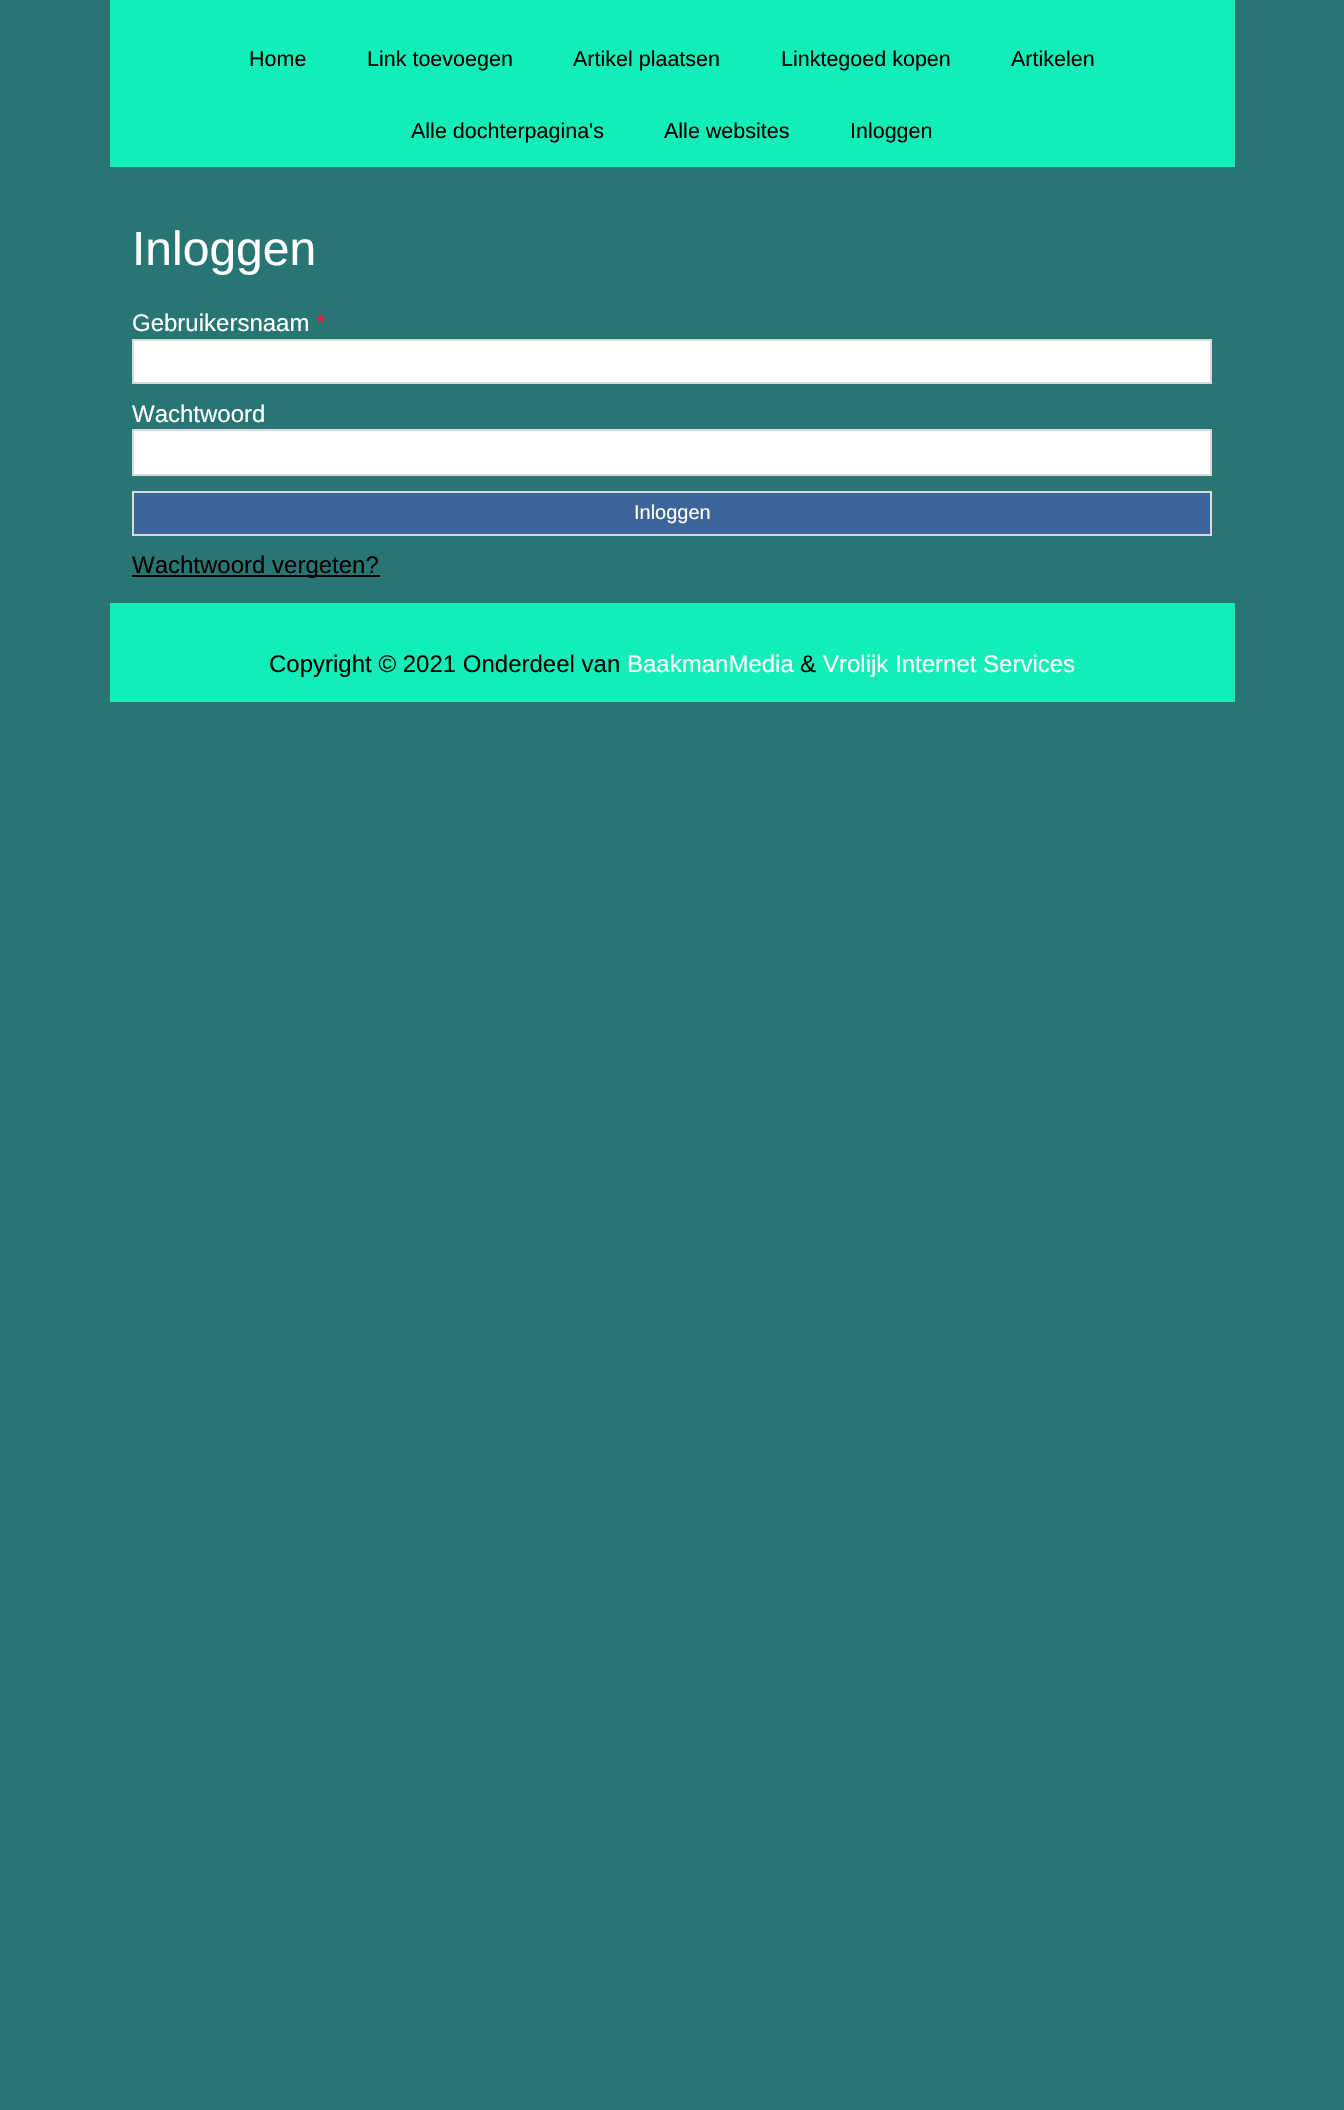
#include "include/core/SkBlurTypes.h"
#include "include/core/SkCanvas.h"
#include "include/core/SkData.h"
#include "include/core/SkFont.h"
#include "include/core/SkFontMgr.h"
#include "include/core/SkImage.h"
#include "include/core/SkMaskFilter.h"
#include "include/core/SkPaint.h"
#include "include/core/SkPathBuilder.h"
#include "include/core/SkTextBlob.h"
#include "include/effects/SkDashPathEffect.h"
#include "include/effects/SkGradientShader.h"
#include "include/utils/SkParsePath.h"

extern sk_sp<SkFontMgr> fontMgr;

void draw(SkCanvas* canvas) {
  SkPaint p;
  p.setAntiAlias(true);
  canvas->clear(SkColorSetRGB(40, 118, 116));
  p.setColor(SkColorSetRGB(17, 238, 183));
  canvas->drawRect(SkRect::MakeLTRB(110, 0, 1235, 167), p);
  p.setColor(SK_ColorWHITE);
  canvas->drawRect(SkRect::MakeLTRB(133, 340, 1211, 383), p);
  p.setStyle(SkPaint::kStroke_Style);
  p.setStrokeWidth(2);
  p.setColor(SkColorSetRGB(218, 218, 218));
  canvas->drawRect(SkRect::MakeLTRB(133, 340, 1211, 383), p);
  p.setStyle(SkPaint::kFill_Style);
  p.setColor(SK_ColorWHITE);
  canvas->drawRect(SkRect::MakeLTRB(133, 430, 1211, 475), p);
  p.setStyle(SkPaint::kStroke_Style);
  p.setColor(SkColorSetRGB(218, 218, 218));
  canvas->drawRect(SkRect::MakeLTRB(133, 430, 1211, 475), p);
  p.setStyle(SkPaint::kFill_Style);
  p.setColor(SkColorSetRGB(59, 101, 155));
  canvas->drawRect(SkRect::MakeLTRB(133, 492, 1211, 535), p);
  p.setStyle(SkPaint::kStroke_Style);
  p.setColor(SkColorSetRGB(218, 218, 218));
  canvas->drawRect(SkRect::MakeLTRB(133, 492, 1211, 535), p);
  p.setStyle(SkPaint::kFill_Style);
  p.setColor(SK_ColorBLACK);
  canvas->drawRect(SkRect::MakeLTRB(132, 575, 380, 577), p);
  p.setColor(SkColorSetRGB(17, 238, 183));
  canvas->drawRect(SkRect::MakeLTRB(110, 603, 1235, 702), p);
  SkFont font1(fontMgr->matchFamilyStyle("Liberation Sans", SkFontStyle::Normal()), 21.5f);
  font1.setSubpixel(true);
  p.setColor(SK_ColorBLACK);
  canvas->drawString("Home", 249, 66, font1, p);
  canvas->drawString("Link toevoegen", 367, 66, font1, p);
  canvas->drawString("Artikel plaatsen", 573, 66, font1, p);
  canvas->drawString("Linktegoed kopen", 781, 66, font1, p);
  canvas->drawString("Artikelen", 1011, 66, font1, p);
  canvas->drawString("Alle dochterpagina's", 411, 138, font1, p);
  canvas->drawString("Alle websites", 664, 138, font1, p);
  canvas->drawString("Inloggen", 850, 138, font1, p);
  SkFont font2(fontMgr->matchFamilyStyle("Liberation Sans", SkFontStyle::Normal()), 48);
  font2.setSubpixel(true);
  p.setColor(SK_ColorWHITE);
  canvas->drawString("Inloggen", 132, 265, font2, p);
  SkFont font3(fontMgr->matchFamilyStyle("Liberation Sans", SkFontStyle::Normal()), 24);
  font3.setSubpixel(true);
  canvas->drawString("Gebruikersnaam", 132, 331, font3, p);
  p.setColor(SkColorSetRGB(247, 23, 53));
  canvas->drawString("*", 316, 331, font3, p);
  p.setColor(SK_ColorWHITE);
  canvas->drawString("Wachtwoord", 132, 422, font3, p);
  SkFont font4(fontMgr->matchFamilyStyle("Liberation Sans", SkFontStyle::Normal()), 20);
  font4.setSubpixel(true);
  canvas->drawString("Inloggen", 634, 519, font4, p);
  p.setColor(SK_ColorBLACK);
  canvas->drawString("Wachtwoord vergeten?", 132, 573, font3, p);
  canvas->drawString("Copyright © 2021 Onderdeel van", 269, 672, font3, p);
  p.setColor(SK_ColorWHITE);
  canvas->drawString("BaakmanMedia", 627, 672, font3, p);
  p.setColor(SK_ColorBLACK);
  canvas->drawString("&", 800, 672, font3, p);
  p.setColor(SK_ColorWHITE);
  canvas->drawString("Vrolijk Internet Services", 823, 672, font3, p);
}
